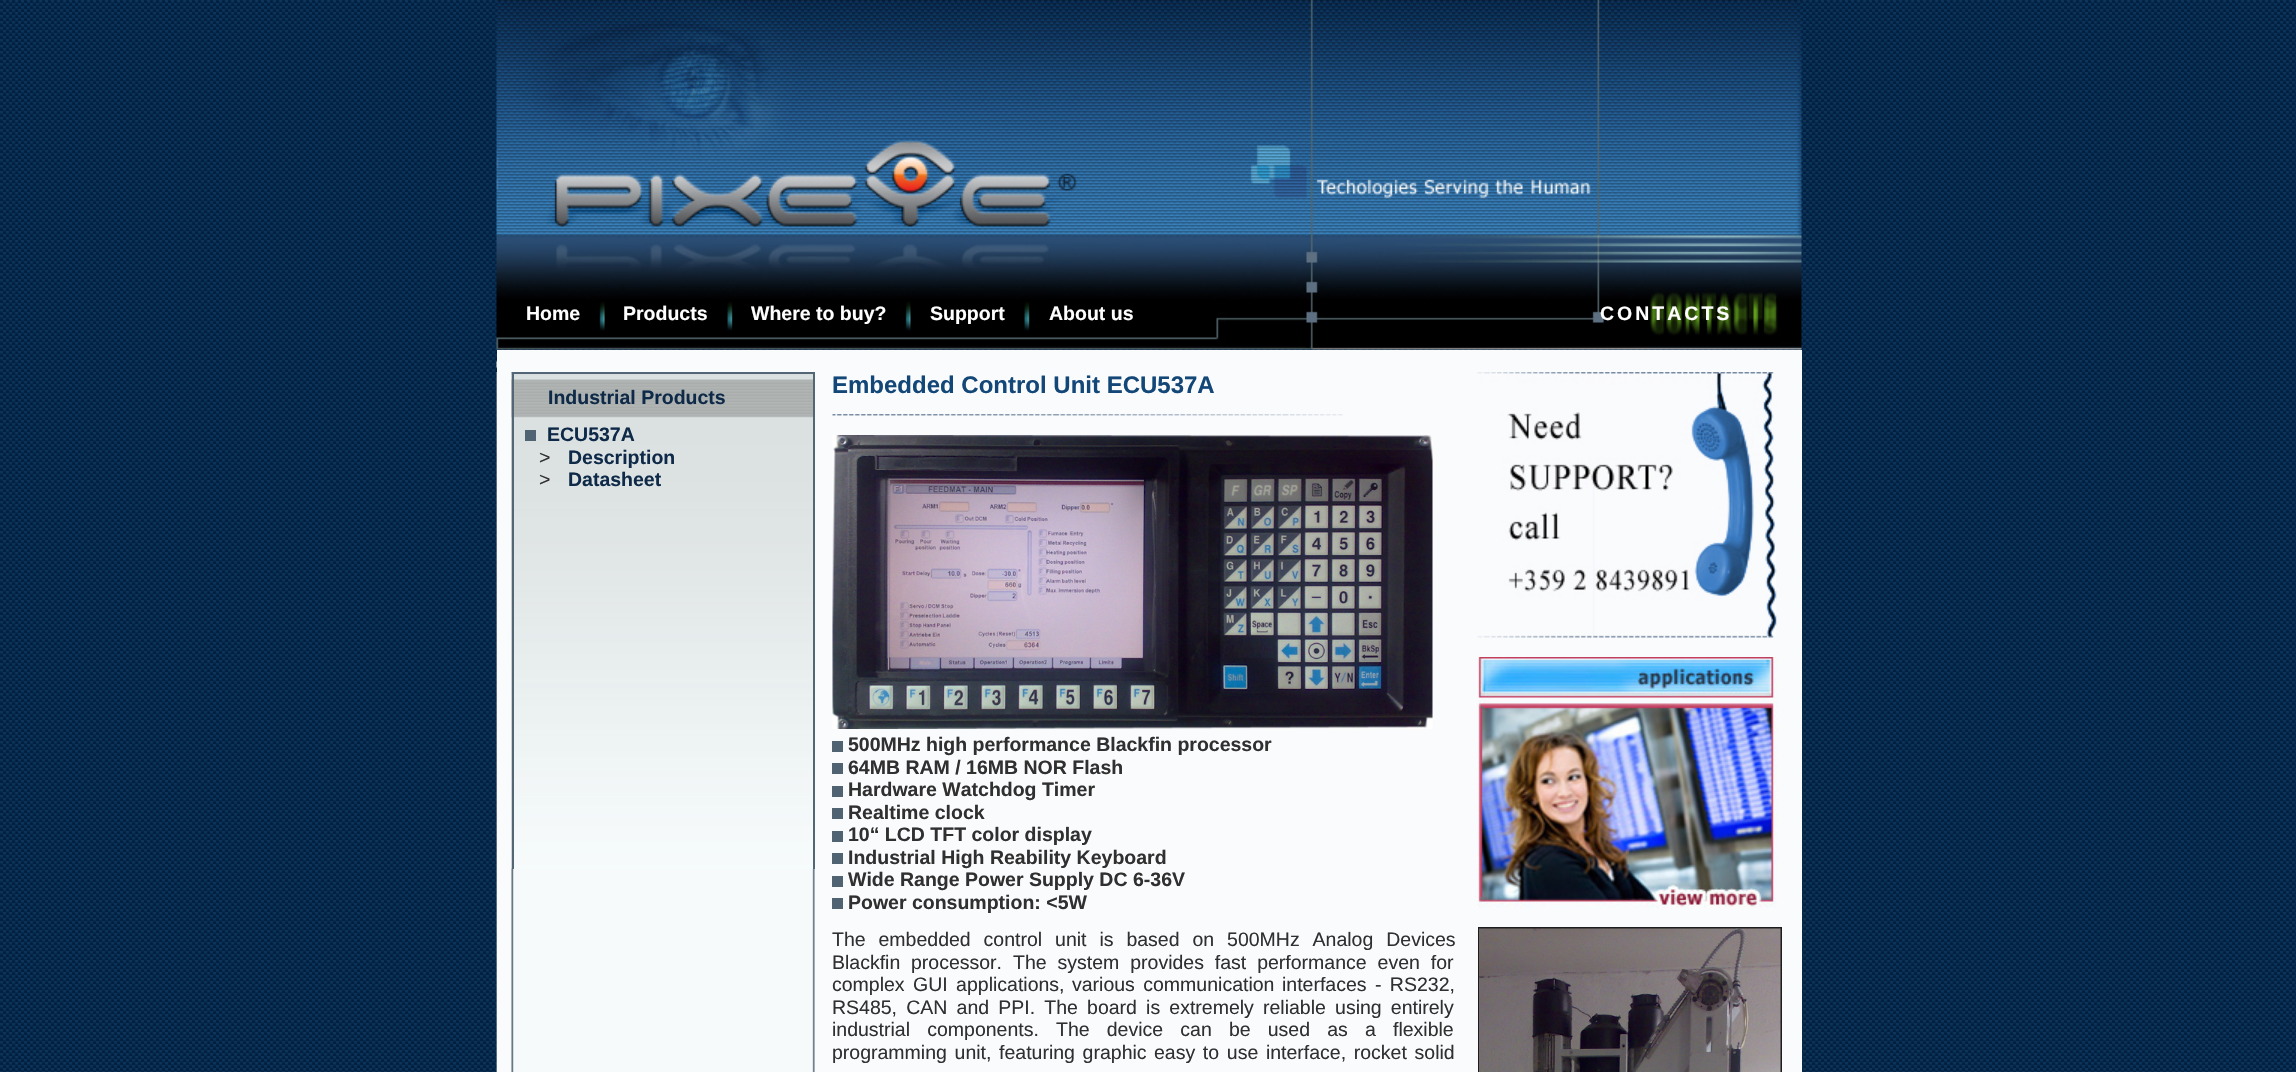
#include "include/core/SkBlurTypes.h"
#include "include/core/SkCanvas.h"
#include "include/core/SkData.h"
#include "include/core/SkFont.h"
#include "include/core/SkFontMgr.h"
#include "include/core/SkImage.h"
#include "include/core/SkMaskFilter.h"
#include "include/core/SkPaint.h"
#include "include/core/SkPathBuilder.h"
#include "include/core/SkTextBlob.h"
#include "include/effects/SkDashPathEffect.h"
#include "include/effects/SkGradientShader.h"
#include "include/utils/SkParsePath.h"

extern sk_sp<SkFontMgr> fontMgr;

void draw(SkCanvas* canvas) {
  SkPaint p;
  p.setAntiAlias(true);
  auto spacedText = [&](const char* s, float x, float y, const SkFont& font, const SkPaint& ink, float letter, float word) {
    std::vector<SkGlyphID> glyphs(font.countText(s, strlen(s), SkTextEncoding::kUTF8));
    std::vector<float> xs(glyphs.size());
    font.textToGlyphs(s, strlen(s), SkTextEncoding::kUTF8, glyphs);
    font.getXPos(glyphs, xs, x);
    float extra = 0;
    for (size_t i = 0; i < glyphs.size(); i++) {
      xs[i] += extra;
      extra += letter + word * (glyphs[i] == font.unicharToGlyph(' '));
    }
    canvas->drawTextBlob(SkTextBlob::MakeFromPosHGlyphs(glyphs, xs, y, font), 0, 0, ink);
  };
  canvas->clear(SK_ColorWHITE);
  canvas->drawImageRect(SkImages::DeferredFromEncodedData(SkData::MakeFromFileName("images/1.png")), SkRect::MakeLTRB(0, 0, 2296, 1072), SkSamplingOptions());
  canvas->drawImageRect(SkImages::DeferredFromEncodedData(SkData::MakeFromFileName("images/2.png")), SkRect::MakeLTRB(496, 0, 1802, 350), SkSamplingOptions());
  canvas->drawImageRect(SkImages::DeferredFromEncodedData(SkData::MakeFromFileName("images/3.png")), SkRect::MakeLTRB(599, 301, 605, 331), SkSamplingOptions());
  canvas->drawImageRect(SkImages::DeferredFromEncodedData(SkData::MakeFromFileName("images/4.png")), SkRect::MakeLTRB(727, 302, 733, 331), SkSamplingOptions());
  canvas->drawImageRect(SkImages::DeferredFromEncodedData(SkData::MakeFromFileName("images/5.png")), SkRect::MakeLTRB(905, 301, 911, 331), SkSamplingOptions());
  canvas->drawImageRect(SkImages::DeferredFromEncodedData(SkData::MakeFromFileName("images/4.png")), SkRect::MakeLTRB(1024, 302, 1030, 331), SkSamplingOptions());
  p.setColor(SkColorSetRGB(250, 251, 253));
  canvas->drawRect(SkRect::MakeLTRB(497, 350, 1802, 1072), p);
  canvas->drawImageRect(SkImages::DeferredFromEncodedData(SkData::MakeFromFileName("images/6.png")), SkRect::MakeLTRB(496, 361, 497, 368), SkSamplingOptions());
  canvas->drawImageRect(SkImages::DeferredFromEncodedData(SkData::MakeFromFileName("images/7.png")), SkRect::MakeLTRB(496, 372, 815, 1072), SkSamplingOptions());
  p.setColor(SkColorSetRGB(247, 252, 253));
  canvas->drawRect(SkRect::MakeLTRB(514, 868, 813, 869), p);
  canvas->drawImageRect(SkImages::DeferredFromEncodedData(SkData::MakeFromFileName("images/8.png")), SkRect::MakeLTRB(511, 373, 813, 869), SkSamplingOptions());
  p.setColor(SkColorSetRGB(83, 102, 117));
  canvas->drawRect(SkRect::MakeLTRB(512, 372, 815, 374), p);
  canvas->drawRect(SkRect::MakeLTRB(813, 372, 815, 869), p);
  canvas->drawRect(SkRect::MakeLTRB(512, 372, 514, 869), p);
  p.setColor(SkColorSetRGB(80, 99, 114));
  canvas->drawRect(SkRect::MakeLTRB(525, 430, 536, 441), p);
  canvas->drawImageRect(SkImages::DeferredFromEncodedData(SkData::MakeFromFileName("images/9.png")), SkRect::MakeLTRB(832, 414, 1343, 416), SkSamplingOptions());
  canvas->drawImageRect(SkImages::DeferredFromEncodedData(SkData::MakeFromFileName("images/10.png")), SkRect::MakeLTRB(832, 435, 1433, 729), SkSamplingOptions());
  canvas->drawRect(SkRect::MakeLTRB(832, 741, 843, 752), p);
  canvas->drawRect(SkRect::MakeLTRB(832, 763, 843, 774), p);
  canvas->drawRect(SkRect::MakeLTRB(832, 786, 843, 797), p);
  canvas->drawRect(SkRect::MakeLTRB(832, 808, 843, 819), p);
  canvas->drawRect(SkRect::MakeLTRB(832, 831, 843, 842), p);
  canvas->drawRect(SkRect::MakeLTRB(832, 853, 843, 864), p);
  canvas->drawRect(SkRect::MakeLTRB(832, 876, 843, 887), p);
  canvas->drawRect(SkRect::MakeLTRB(832, 898, 843, 909), p);
  canvas->drawImageRect(SkImages::DeferredFromEncodedData(SkData::MakeFromFileName("images/11.png")), SkRect::MakeLTRB(1477, 372, 1777, 638), SkSamplingOptions());
  canvas->drawImageRect(SkImages::DeferredFromEncodedData(SkData::MakeFromFileName("images/12.png")), SkRect::MakeLTRB(1477, 657, 1778, 908), SkSamplingOptions());
  p.setStyle(SkPaint::kStroke_Style);
  p.setStrokeWidth(2);
  p.setColor(SkColorSetRGB(30, 29, 29));
  canvas->drawRect(SkRect::MakeLTRB(1479, 928, 1781, 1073), p);
  canvas->drawImageRect(SkImages::DeferredFromEncodedData(SkData::MakeFromFileName("images/13.png")), SkRect::MakeLTRB(1479, 928, 1781, 1072), SkSamplingOptions());
  SkFont font1(fontMgr->matchFamilyStyle("Liberation Sans", SkFontStyle::Bold()), 19.5f);
  font1.setSubpixel(true);
  p.setStyle(SkPaint::kFill_Style);
  p.setColor(SK_ColorWHITE);
  canvas->drawString("Home", 526, 320, font1, p);
  canvas->drawString("Products", 623, 320, font1, p);
  canvas->drawString("Where to buy?", 751, 320, font1, p);
  canvas->drawString("Support", 930, 320, font1, p);
  canvas->drawString("About us", 1049, 320, font1, p);
  spacedText("CONTACTS", 1600, 320, font1, p, 3, 0);
  p.setColor(SkColorSetRGB(14, 42, 72));
  canvas->drawString("Industrial Products", 548, 404, font1, p);
  canvas->drawString("ECU537A", 547, 441, font1, p);
  SkFont font2(fontMgr->matchFamilyStyle("Liberation Sans", SkFontStyle::Normal()), 19.5f);
  font2.setSubpixel(true);
  p.setColor(SkColorSetRGB(48, 48, 49));
  canvas->drawString(">", 539, 464, font2, p);
  p.setColor(SkColorSetRGB(14, 42, 72));
  canvas->drawString("Description", 568, 464, font1, p);
  p.setColor(SkColorSetRGB(48, 48, 49));
  canvas->drawString(">", 539, 486, font2, p);
  p.setColor(SkColorSetRGB(14, 42, 72));
  canvas->drawString("Datasheet", 568, 486, font1, p);
  SkFont font3(fontMgr->matchFamilyStyle("Liberation Sans", SkFontStyle::Bold()), 24);
  font3.setSubpixel(true);
  p.setColor(SkColorSetRGB(19, 71, 119));
  canvas->drawString("Embedded Control Unit ECU537A", 832, 393, font3, p);
  p.setColor(SkColorSetRGB(48, 48, 49));
  canvas->drawString("500MHz high performance Blackfin processor", 848, 751, font1, p);
  canvas->drawString("64MB RAM / 16MB NOR Flash", 848, 774, font1, p);
  canvas->drawString("Hardware Watchdog Timer", 848, 796, font1, p);
  canvas->drawString("Realtime clock", 848, 819, font1, p);
  canvas->drawString("10“ LCD TFT color display", 848, 841, font1, p);
  canvas->drawString("Industrial High Reability Keyboard", 848, 864, font1, p);
  canvas->drawString("Wide Range Power Supply DC 6-36V", 848, 886, font1, p);
  canvas->drawString("Power consumption: <5W", 848, 909, font1, p);
  spacedText("The embedded control unit is based on 500MHz Analog Devices", 832, 946, font2, p, 0, 7.5f);
  canvas->drawString("Blackfin", 832, 969, font2, p);
  canvas->drawString("processor.", 911, 969, font2, p);
  spacedText("The system provides fast performance even for", 1013, 969, font2, p, 0, 5.5f);
  spacedText("complex GUI applications,", 832, 991, font2, p, 0, 3);
  spacedText("various communication", 1072, 991, font2, p, 0, 3);
  spacedText("interfaces - RS232,", 1282, 991, font2, p, 0, 3);
  spacedText("RS485, CAN and PPI. The board is extremely reliable using entirely", 832, 1014, font2, p, 0, 3.75f);
  spacedText("industrial components.", 832, 1036, font2, p, 0, 11.75f);
  spacedText("The device can be used as a flexible", 1056, 1036, font2, p, 0, 11.75f);
  spacedText("programming unit, featuring graphic", 832, 1059, font2, p, 0, 2.25f);
  spacedText("easy to use interface, rocket solid", 1154, 1059, font2, p, 0, 2.25f);
}
